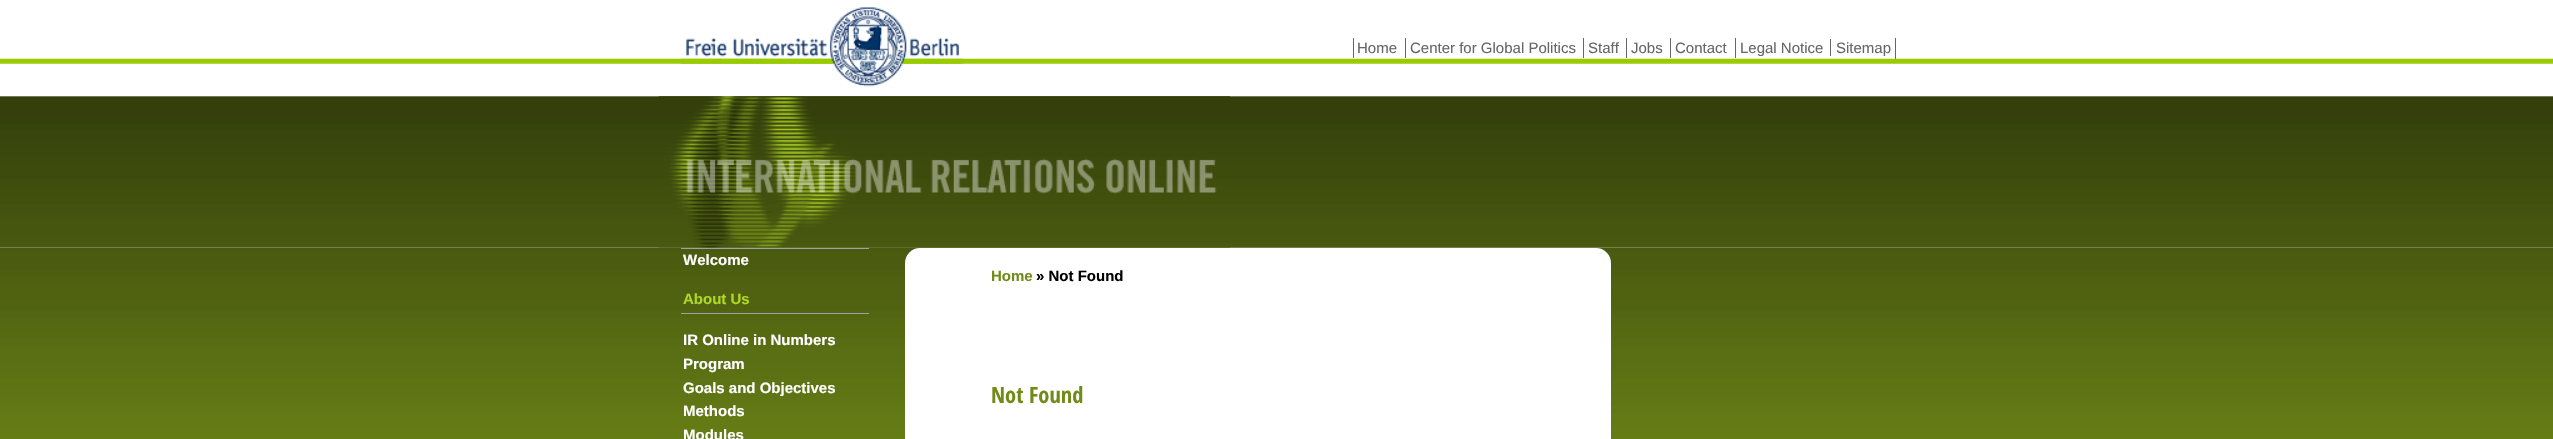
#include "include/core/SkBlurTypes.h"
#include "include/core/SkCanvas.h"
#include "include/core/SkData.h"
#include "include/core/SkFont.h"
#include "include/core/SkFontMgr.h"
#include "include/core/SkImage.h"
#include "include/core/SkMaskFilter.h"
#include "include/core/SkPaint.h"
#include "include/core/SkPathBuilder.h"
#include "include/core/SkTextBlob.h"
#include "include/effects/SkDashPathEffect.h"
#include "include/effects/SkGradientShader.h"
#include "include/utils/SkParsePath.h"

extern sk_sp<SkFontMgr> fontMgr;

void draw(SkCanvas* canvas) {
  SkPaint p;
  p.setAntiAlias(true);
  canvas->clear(SK_ColorWHITE);
  canvas->drawImageRect(SkImages::DeferredFromEncodedData(SkData::MakeFromFileName("images/4.png")), SkRect::MakeLTRB(0, 247, 2553, 439), SkSamplingOptions());
  canvas->drawImageRect(SkImages::DeferredFromEncodedData(SkData::MakeFromFileName("images/3.png")), SkRect::MakeLTRB(0, 58, 2553, 248), SkSamplingOptions());
  canvas->drawImageRect(SkImages::DeferredFromEncodedData(SkData::MakeFromFileName("images/1.png")), SkRect::MakeLTRB(681, 7, 963, 87), SkSamplingOptions());
  p.setColor(SkColorSetRGB(102, 102, 102));
  canvas->drawRect(SkRect::MakeLTRB(1895, 38, 1896, 59), p);
  canvas->drawRect(SkRect::MakeLTRB(1353, 38, 1354, 58), p);
  canvas->drawRect(SkRect::MakeLTRB(1405, 38, 1406, 58), p);
  canvas->drawRect(SkRect::MakeLTRB(1583, 38, 1584, 58), p);
  canvas->drawRect(SkRect::MakeLTRB(1626, 38, 1627, 58), p);
  canvas->drawRect(SkRect::MakeLTRB(1670, 38, 1671, 58), p);
  canvas->drawRect(SkRect::MakeLTRB(1735, 38, 1736, 58), p);
  canvas->drawRect(SkRect::MakeLTRB(1830, 39, 1831, 56), p);
  canvas->drawImageRect(SkImages::DeferredFromEncodedData(SkData::MakeFromFileName("images/2.png")), SkRect::MakeLTRB(658, 96, 1230, 248), SkSamplingOptions());
  p.setColor(SkColorSetRGB(163, 162, 162));
  canvas->drawRect(SkRect::MakeLTRB(681, 248, 869, 249), p);
  canvas->drawRect(SkRect::MakeLTRB(681, 313, 869, 314), p);
  p.setColor(SK_ColorWHITE);
  canvas->drawRoundRect(SkRect::MakeLTRB(905, 248, 1611, 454), 15, 15, p);
  SkFont font1(fontMgr->matchFamilyStyle("Liberation Sans", SkFontStyle::Normal()), 15);
  font1.setSubpixel(true);
  p.setColor(SkColorSetRGB(102, 102, 102));
  canvas->drawString("Home", 1357, 53, font1, p);
  canvas->drawString("Center for Global Politics", 1410, 53, font1, p);
  canvas->drawString("Staff", 1588, 53, font1, p);
  canvas->drawString("Jobs", 1631, 53, font1, p);
  canvas->drawString("Contact", 1675, 53, font1, p);
  canvas->drawString("Legal Notice", 1740, 53, font1, p);
  canvas->drawString("Sitemap", 1836, 53, font1, p);
  SkFont font2(fontMgr->matchFamilyStyle("Liberation Sans", SkFontStyle::Bold()), 15);
  font2.setSubpixel(true);
  p.setColor(SK_ColorWHITE);
  canvas->drawString("Welcome", 683, 265, font2, p);
  p.setColor(SkColorSetRGB(176, 215, 36));
  canvas->drawString("About Us", 683, 304, font2, p);
  p.setColor(SK_ColorWHITE);
  canvas->drawString("IR Online in Numbers", 683, 345, font2, p);
  canvas->drawString("Program", 683, 369, font2, p);
  canvas->drawString("Goals and Objectives", 683, 393, font2, p);
  canvas->drawString("Methods", 683, 416, font2, p);
  canvas->drawString("Modules", 683, 440, font2, p);
  p.setColor(SkColorSetRGB(114, 139, 24));
  canvas->drawString("Home", 991, 281, font2, p);
  p.setColor(SK_ColorBLACK);
  canvas->drawString("» Not Found", 1036, 281, font2, p);
  SkFont font3(fontMgr->matchFamilyStyle("Open Sans Condensed", SkFontStyle::Bold()), 22.5f);
  font3.setSubpixel(true);
  p.setColor(SkColorSetRGB(114, 139, 24));
  canvas->drawString("Not Found", 991, 403, font3, p);
}
